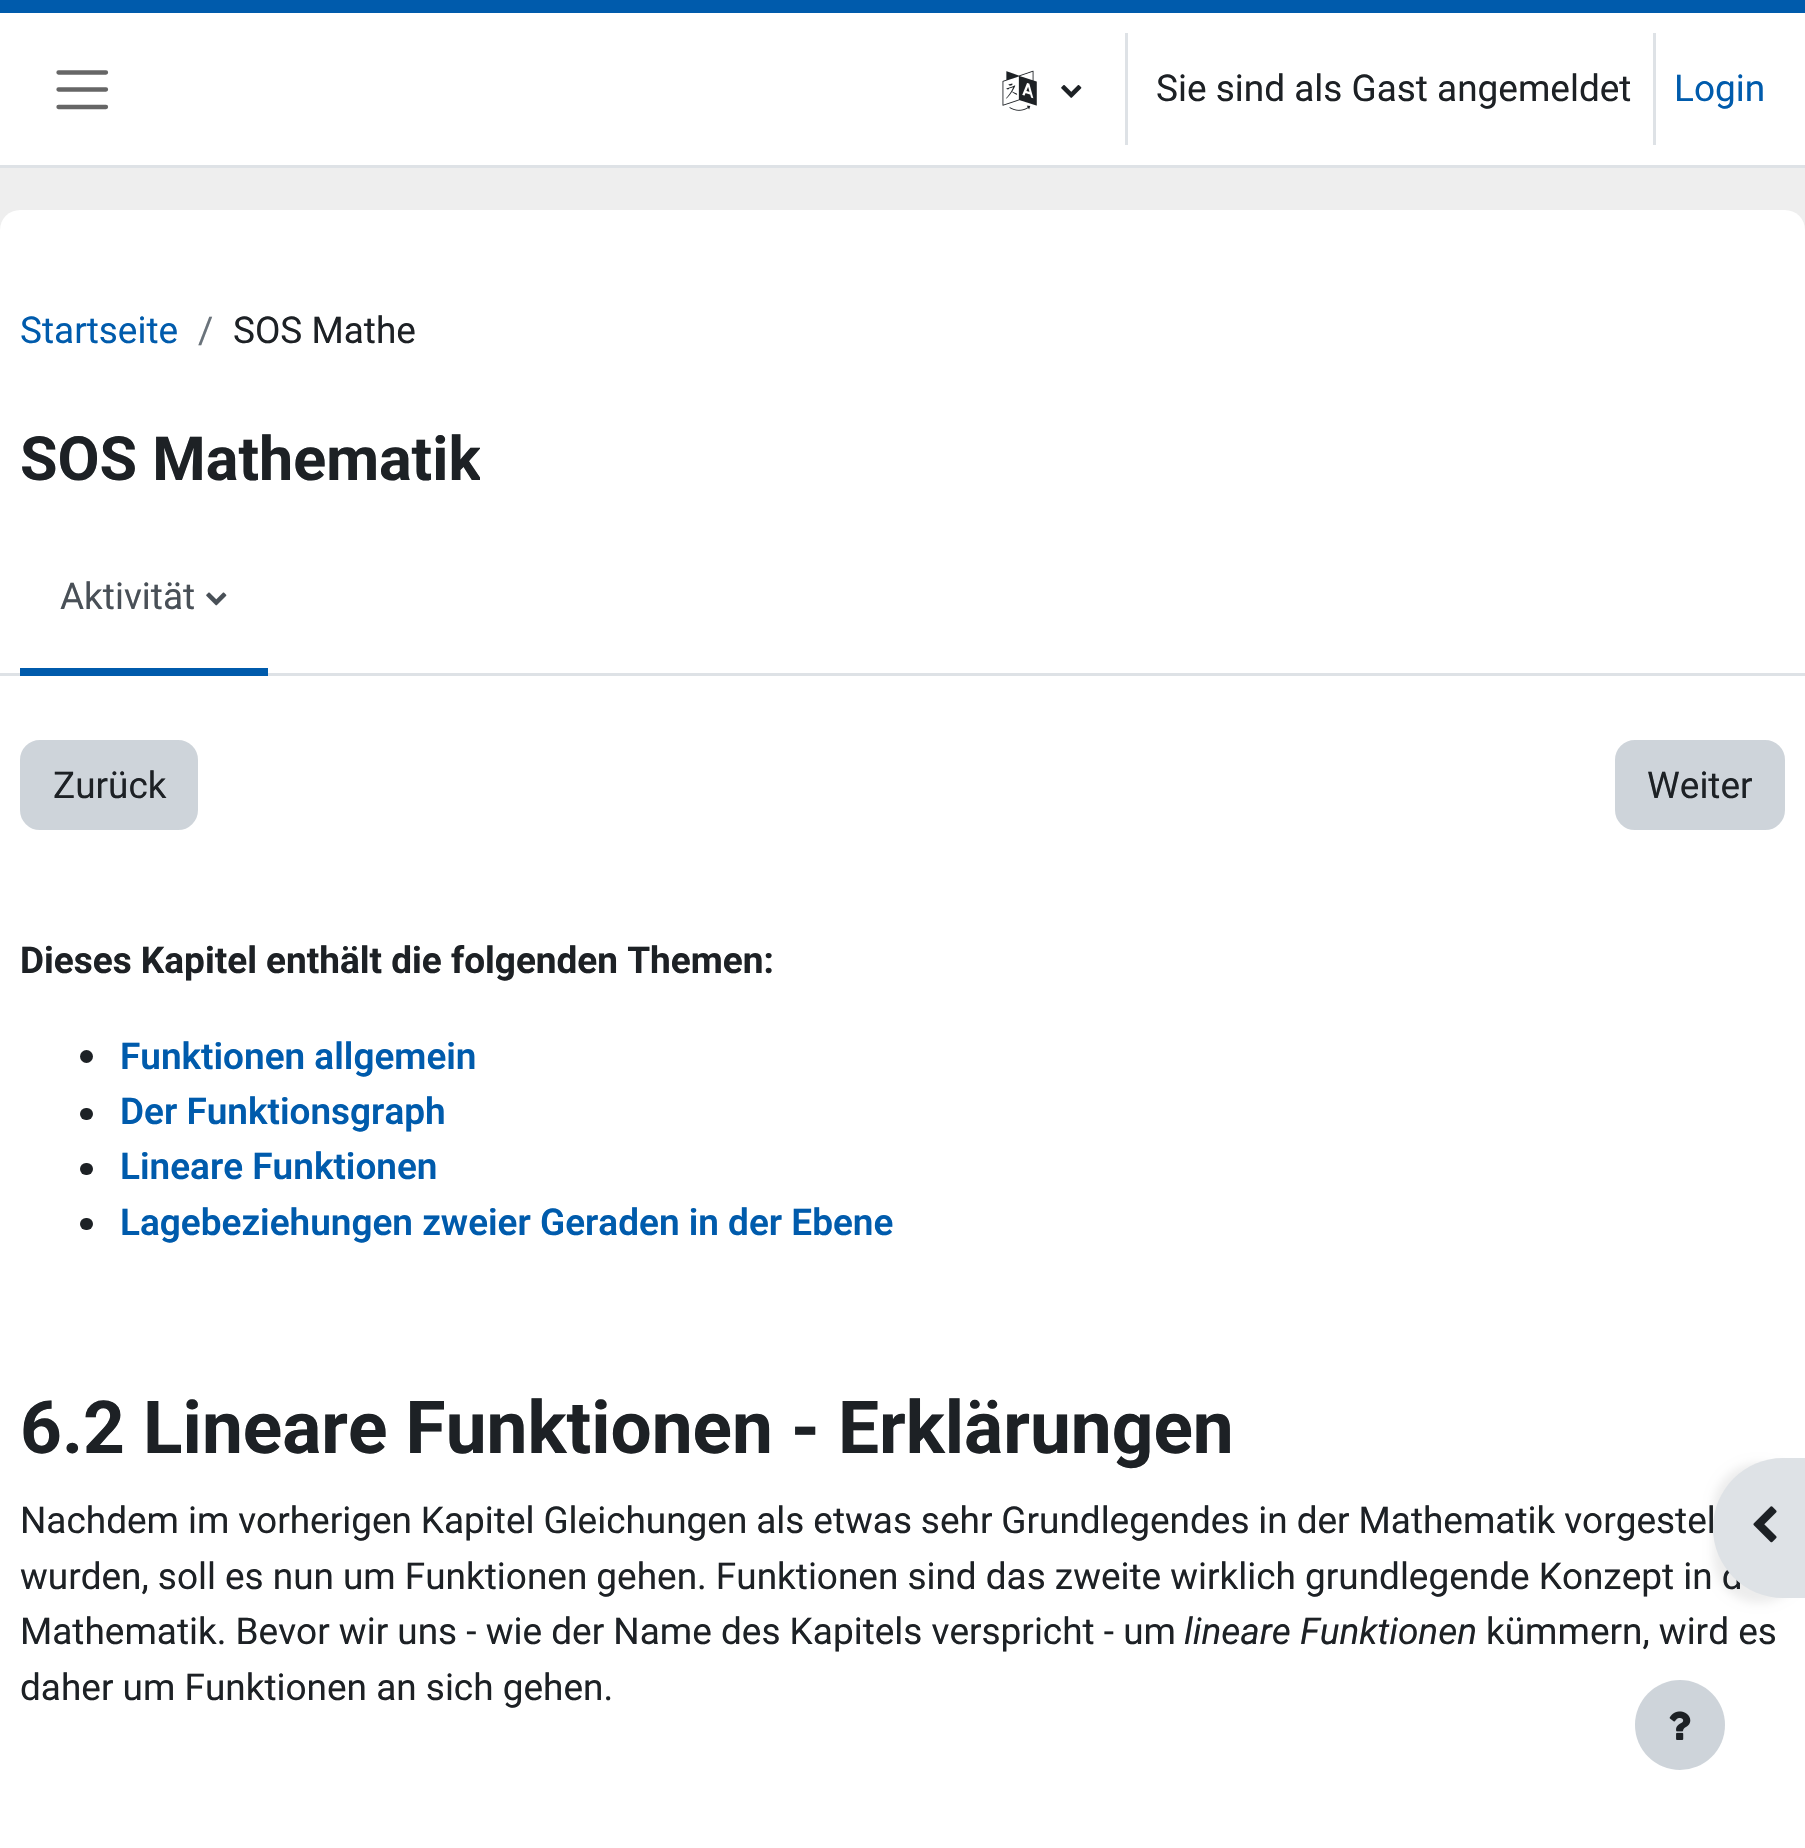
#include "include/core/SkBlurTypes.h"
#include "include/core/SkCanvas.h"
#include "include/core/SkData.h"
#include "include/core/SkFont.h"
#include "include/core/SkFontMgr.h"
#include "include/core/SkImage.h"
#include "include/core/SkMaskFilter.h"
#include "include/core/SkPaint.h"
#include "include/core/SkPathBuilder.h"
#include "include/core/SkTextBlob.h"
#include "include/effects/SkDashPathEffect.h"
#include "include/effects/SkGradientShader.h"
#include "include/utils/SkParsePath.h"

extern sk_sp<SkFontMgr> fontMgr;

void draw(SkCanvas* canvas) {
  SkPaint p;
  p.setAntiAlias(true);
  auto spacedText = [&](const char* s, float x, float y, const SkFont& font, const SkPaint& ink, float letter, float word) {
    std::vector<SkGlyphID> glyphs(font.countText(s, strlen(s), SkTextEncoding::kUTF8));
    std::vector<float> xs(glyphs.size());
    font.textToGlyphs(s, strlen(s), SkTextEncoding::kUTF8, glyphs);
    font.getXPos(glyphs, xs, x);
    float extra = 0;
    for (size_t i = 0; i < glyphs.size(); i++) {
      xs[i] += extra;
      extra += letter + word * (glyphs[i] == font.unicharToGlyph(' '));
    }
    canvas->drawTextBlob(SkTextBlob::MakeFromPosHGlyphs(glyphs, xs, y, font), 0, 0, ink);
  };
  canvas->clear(SkColorSetRGB(238, 238, 238));
  p.setColor(SK_ColorWHITE);
  canvas->drawRect(SkRect::MakeLTRB(0, 13, 1805, 165), p);
  p.setColor(SkColorSetRGB(0, 91, 172));
  canvas->drawRect(SkRect::MakeLTRB(0, 0, 1805, 13), p);
  p.setColor(SkColorSetRGB(222, 226, 230));
  canvas->drawRect(SkRect::MakeLTRB(0, 165, 1805, 168), p);
  p.setStyle(SkPaint::kStroke_Style);
  p.setStrokeWidth(4.3f);
  p.setStrokeCap(SkPaint::kRound_Cap);
  p.setColor(SkColorSetRGB(102, 102, 102));
  canvas->drawPath(SkPathBuilder().moveTo(58.5f, 72.5f).lineTo(106, 72.5f).moveTo(58.5f, 89.5f).lineTo(106, 89.5f).moveTo(58.5f, 107).lineTo(106, 107).detach(), p);
  canvas->drawImageRect(SkImages::DeferredFromEncodedData(SkData::MakeFromFileName("images/1.png")), SkRect::MakeLTRB(1002, 70, 1037, 111), SkSamplingOptions());
  canvas->drawImageRect(SkImages::DeferredFromEncodedData(SkData::MakeFromFileName("images/2.png")), SkRect::MakeLTRB(1061, 85, 1082, 98), SkSamplingOptions());
  p.setStyle(SkPaint::kFill_Style);
  p.setColor(SkColorSetRGB(222, 226, 230));
  canvas->drawRect(SkRect::MakeLTRB(1125, 33, 1128, 145), p);
  canvas->drawRect(SkRect::MakeLTRB(1653, 33, 1656, 145), p);
  p.setColor(SK_ColorWHITE);
  canvas->drawRoundRect(SkRect::MakeLTRB(0, 210, 1805, 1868), 20, 20, p);
  p.setColor(SkColorSetRGB(222, 226, 230));
  canvas->drawRect(SkRect::MakeLTRB(0, 673, 1805, 676), p);
  p.setColor(SkColorSetRGB(0, 91, 172));
  canvas->drawRect(SkRect::MakeLTRB(20, 668, 268, 676), p);
  canvas->drawImageRect(SkImages::DeferredFromEncodedData(SkData::MakeFromFileName("images/3.png")), SkRect::MakeLTRB(206, 592, 227, 606), SkSamplingOptions());
  p.setColor(SkColorSetRGB(206, 212, 218));
  canvas->drawRoundRect(SkRect::MakeLTRB(21.5f, 741.5f, 196.5f, 828.5f), 18.5f, 18.5f, p);
  p.setStyle(SkPaint::kStroke_Style);
  p.setStrokeWidth(3);
  p.setStrokeCap(SkPaint::kButt_Cap);
  canvas->drawRoundRect(SkRect::MakeLTRB(21.5f, 741.5f, 196.5f, 828.5f), 18.5f, 18.5f, p);
  p.setStyle(SkPaint::kFill_Style);
  canvas->drawRoundRect(SkRect::MakeLTRB(1616.5f, 741.5f, 1783.5f, 828.5f), 18.5f, 18.5f, p);
  p.setStyle(SkPaint::kStroke_Style);
  canvas->drawRoundRect(SkRect::MakeLTRB(1616.5f, 741.5f, 1783.5f, 828.5f), 18.5f, 18.5f, p);
  p.setStyle(SkPaint::kFill_Style);
  p.setColor(SkColorSetRGB(29, 33, 37));
  canvas->drawCircle(86.5f, 1056.5f, 6.5f, p);
  canvas->drawRoundRect(SkRect::MakeLTRB(80, 1108, 93, 1120), 6, 6, p);
  canvas->drawRoundRect(SkRect::MakeLTRB(80, 1163, 93, 1175), 6, 6, p);
  canvas->drawRoundRect(SkRect::MakeLTRB(80, 1218, 93, 1230), 6, 6, p);
  p.setColor(SkColorSetARGB(18, 0, 0, 0));
  p.setMaskFilter(SkMaskFilter::MakeBlur(kNormal_SkBlurStyle, 5));
  canvas->drawRoundRect(SkRect::MakeLTRB(1713, 1463, 1805, 1603), 70, 70, p);
  p.setMaskFilter(nullptr);
  p.setColor(SkColorSetRGB(206, 212, 218));
  canvas->drawCircle(1680, 1725, 45, p);
  canvas->drawImageRect(SkImages::DeferredFromEncodedData(SkData::MakeFromFileName("images/5.png")), SkRect::MakeLTRB(1669, 1711, 1691, 1740), SkSamplingOptions());
  SkFont font1(fontMgr->matchFamilyStyle("Roboto", SkFontStyle::Normal()), 36.95f);
  font1.setSubpixel(true);
  p.setColor(SkColorSetRGB(29, 33, 37));
  canvas->drawString("Sie sind als Gast angemeldet", 1156, 101, font1, p);
  p.setColor(SkColorSetRGB(0, 91, 172));
  canvas->drawString("Login", 1674, 101, font1, p);
  canvas->drawString("Startseite", 20, 343, font1, p);
  p.setColor(SkColorSetRGB(106, 115, 123));
  canvas->drawString("/", 198, 343, font1, p);
  p.setColor(SkColorSetRGB(29, 33, 37));
  canvas->drawString("SOS Mathe", 233, 343, font1, p);
  canvas->save();
  canvas->clipRect(SkRect::MakeLTRB(20, 413, 480, 525));
  SkFont font2(fontMgr->matchFamilyStyle("Roboto", SkFontStyle::Bold()), 61);
  font2.setSubpixel(true);
  canvas->drawString("SOS Mathematik", 20, 480, font2, p);
  canvas->restore();
  p.setColor(SkColorSetRGB(73, 80, 87));
  canvas->drawString("Aktivität", 60, 609, font1, p);
  p.setColor(SkColorSetRGB(29, 33, 37));
  canvas->drawString("Zurück", 53, 798, font1, p);
  canvas->drawString("Weiter", 1647, 798, font1, p);
  SkFont font3(fontMgr->matchFamilyStyle("Roboto", SkFontStyle::Bold()), 36.95f);
  font3.setSubpixel(true);
  canvas->drawString("Dieses Kapitel enthält die folgenden Themen:", 20, 973, font3, p);
  SkFont font4(fontMgr->matchFamilyStyle("Roboto", SkFontStyle(600, SkFontStyle::kNormal_Width, SkFontStyle::kUpright_Slant)), 36.95f);
  font4.setSubpixel(true);
  p.setColor(SkColorSetRGB(0, 91, 172));
  canvas->drawString("Funktionen allgemein", 120, 1069, font4, p);
  canvas->drawString("Der Funktionsgraph", 120, 1124, font4, p);
  canvas->drawString("Lineare Funktionen", 120, 1179, font4, p);
  canvas->drawString("Lagebeziehungen zweier Geraden in der Ebene", 120, 1235, font4, p);
  SkFont font5(fontMgr->matchFamilyStyle("Roboto", SkFontStyle::Bold()), 73);
  font5.setSubpixel(true);
  p.setColor(SkColorSetRGB(29, 33, 37));
  canvas->drawString("6.2 Lineare Funktionen - Erklärungen", 20, 1453, font5, p);
  spacedText("Nachdem im vorherigen Kapitel Gleichungen als etwas sehr Grundlegendes in der Mathematik vorgestel", 20, 1533, font1, p, 0, -0.25f);
  spacedText("wurden, soll es nun um Funktionen gehen. Funktionen sind das zweite wirklich grundlegende Konzept in d", 20, 1589, font1, p, 0, -0.1f);
  canvas->drawString("Mathematik. Bevor wir uns - wie der Name des Kapitels verspricht - um", 20, 1644, font1, p);
  SkFont font6(fontMgr->matchFamilyStyle("Roboto", SkFontStyle::Italic()), 36.95f);
  font6.setSubpixel(true);
  canvas->drawString("lineare Funktionen", 1184, 1644, font6, p);
  canvas->drawString("kümmern, wird es", 1486, 1644, font1, p);
  canvas->drawString("daher um Funktionen an sich gehen.", 20, 1700, font1, p);
  p.setColor(SkColorSetRGB(222, 226, 230));
  canvas->drawPath(SkPathBuilder().moveTo(1783, 1458).lineTo(1805, 1458).lineTo(1805, 1598).lineTo(1783, 1598).cubicTo(1744.5f, 1598, 1713, 1566.5f, 1713, 1528).cubicTo(1713, 1489.5f, 1744.5f, 1458, 1783, 1458).close().detach(), p);
  canvas->drawImageRect(SkImages::DeferredFromEncodedData(SkData::MakeFromFileName("images/4.png")), SkRect::MakeLTRB(1753, 1506, 1777, 1543), SkSamplingOptions());
}
